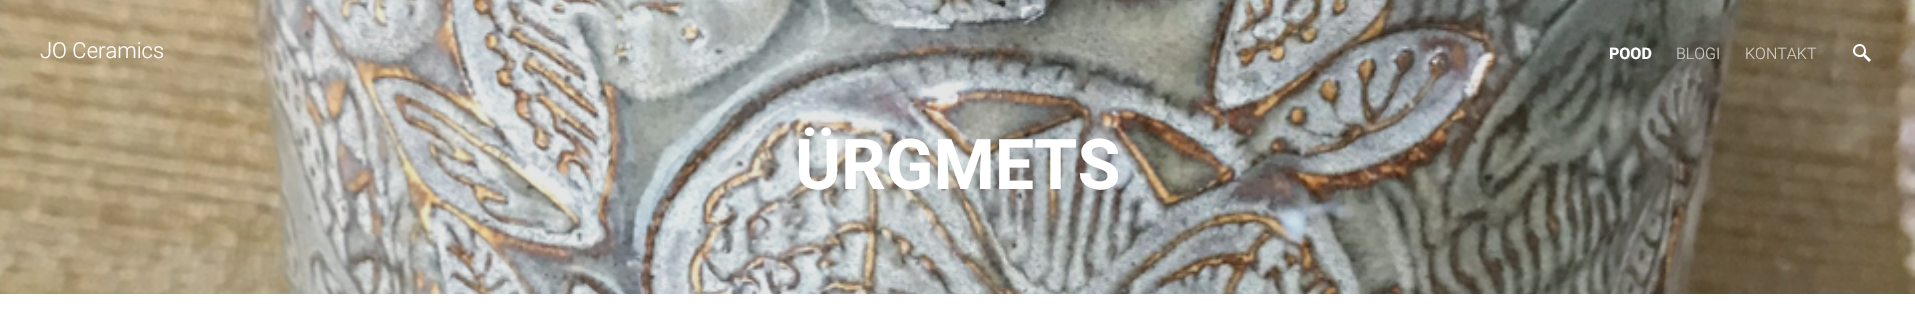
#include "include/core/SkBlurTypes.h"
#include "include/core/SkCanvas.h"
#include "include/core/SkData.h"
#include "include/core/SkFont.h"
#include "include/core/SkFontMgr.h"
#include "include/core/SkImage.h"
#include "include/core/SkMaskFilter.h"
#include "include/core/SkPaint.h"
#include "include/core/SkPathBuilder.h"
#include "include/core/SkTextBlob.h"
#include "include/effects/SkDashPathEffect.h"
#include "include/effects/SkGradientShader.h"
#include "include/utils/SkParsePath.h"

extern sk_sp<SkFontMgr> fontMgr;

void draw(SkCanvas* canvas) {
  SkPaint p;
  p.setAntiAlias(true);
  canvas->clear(SK_ColorWHITE);
  canvas->drawImageRect(SkImages::DeferredFromEncodedData(SkData::MakeFromFileName("images/1.png")), SkRect::MakeLTRB(0, 0, 1915, 294), SkSamplingOptions());
  canvas->drawImageRect(SkImages::DeferredFromEncodedData(SkData::MakeFromFileName("images/2.png")), SkRect::MakeLTRB(1853, 44, 1871, 62), SkSamplingOptions());
  SkFont font1(fontMgr->matchFamilyStyle("Roboto", SkFontStyle(300, SkFontStyle::kNormal_Width, SkFontStyle::kUpright_Slant)), 22);
  font1.setSubpixel(true);
  p.setColor(SK_ColorWHITE);
  canvas->drawString("JO Ceramics", 40, 58, font1, p);
  SkFont font2(fontMgr->matchFamilyStyle("Roboto", SkFontStyle::Bold()), 16);
  font2.setSubpixel(true);
  canvas->drawString("POOD", 1609, 59, font2, p);
  SkFont font3(fontMgr->matchFamilyStyle("Roboto", SkFontStyle(300, SkFontStyle::kNormal_Width, SkFontStyle::kUpright_Slant)), 16);
  font3.setSubpixel(true);
  p.setColor(SkColorSetRGB(204, 203, 201));
  canvas->drawString("BLOGI", 1676, 59, font3, p);
  p.setColor(SkColorSetRGB(212, 208, 200));
  canvas->drawString("KONTAKT", 1745, 59, font3, p);
  SkFont font4(fontMgr->matchFamilyStyle("Roboto", SkFontStyle::Bold()), 70);
  font4.setSubpixel(true);
  p.setColor(SK_ColorWHITE);
  canvas->drawString("ÜRGMETS", 795, 189, font4, p);
}
